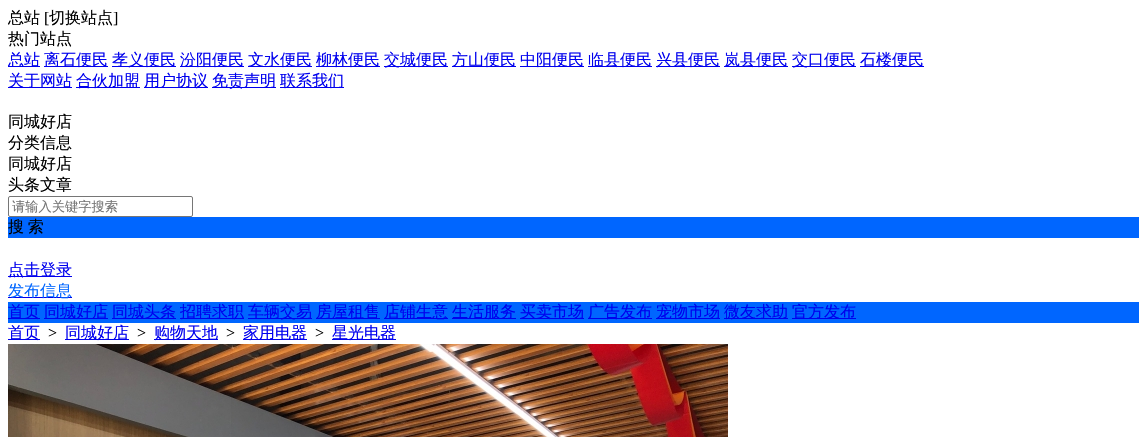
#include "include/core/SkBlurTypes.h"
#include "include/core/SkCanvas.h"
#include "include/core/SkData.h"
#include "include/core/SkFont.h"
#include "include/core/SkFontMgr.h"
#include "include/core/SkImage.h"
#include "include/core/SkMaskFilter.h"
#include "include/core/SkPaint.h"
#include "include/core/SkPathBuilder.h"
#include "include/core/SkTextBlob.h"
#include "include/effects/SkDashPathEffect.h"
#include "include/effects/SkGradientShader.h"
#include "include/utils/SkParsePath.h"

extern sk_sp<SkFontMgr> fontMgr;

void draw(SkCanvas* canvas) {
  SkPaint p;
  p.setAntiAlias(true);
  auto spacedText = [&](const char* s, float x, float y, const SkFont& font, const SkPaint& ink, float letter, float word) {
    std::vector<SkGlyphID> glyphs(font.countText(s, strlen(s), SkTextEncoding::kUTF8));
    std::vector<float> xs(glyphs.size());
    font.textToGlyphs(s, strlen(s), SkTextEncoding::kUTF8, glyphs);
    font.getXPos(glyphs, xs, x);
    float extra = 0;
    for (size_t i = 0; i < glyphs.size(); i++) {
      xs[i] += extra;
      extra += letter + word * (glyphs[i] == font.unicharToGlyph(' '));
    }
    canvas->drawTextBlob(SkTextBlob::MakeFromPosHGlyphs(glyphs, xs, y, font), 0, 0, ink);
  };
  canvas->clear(SK_ColorWHITE);
  p.setColor(SkColorSetRGB(0, 0, 238));
  canvas->drawRect(SkRect::MakeLTRB(8, 66, 40, 67), p);
  canvas->drawRect(SkRect::MakeLTRB(44, 66, 108, 67), p);
  canvas->drawRect(SkRect::MakeLTRB(112, 66, 176, 67), p);
  canvas->drawRect(SkRect::MakeLTRB(180, 66, 244, 67), p);
  canvas->drawRect(SkRect::MakeLTRB(248, 66, 312, 67), p);
  canvas->drawRect(SkRect::MakeLTRB(316, 66, 380, 67), p);
  canvas->drawRect(SkRect::MakeLTRB(384, 66, 448, 67), p);
  canvas->drawRect(SkRect::MakeLTRB(452, 66, 516, 67), p);
  canvas->drawRect(SkRect::MakeLTRB(520, 66, 584, 67), p);
  canvas->drawRect(SkRect::MakeLTRB(588, 66, 652, 67), p);
  canvas->drawRect(SkRect::MakeLTRB(656, 66, 720, 67), p);
  canvas->drawRect(SkRect::MakeLTRB(724, 66, 788, 67), p);
  canvas->drawRect(SkRect::MakeLTRB(792, 66, 856, 67), p);
  canvas->drawRect(SkRect::MakeLTRB(860, 66, 924, 67), p);
  canvas->drawRect(SkRect::MakeLTRB(8, 87, 72, 88), p);
  canvas->drawRect(SkRect::MakeLTRB(76, 87, 140, 88), p);
  canvas->drawRect(SkRect::MakeLTRB(144, 87, 208, 88), p);
  canvas->drawRect(SkRect::MakeLTRB(212, 87, 276, 88), p);
  canvas->drawRect(SkRect::MakeLTRB(280, 87, 344, 88), p);
  p.setStyle(SkPaint::kStroke_Style);
  p.setStrokeWidth(1);
  p.setColor(SkColorSetRGB(118, 118, 118));
  canvas->drawRoundRect(SkRect::MakeLTRB(8.5f, 196.5f, 192.5f, 216.5f), 1.5f, 1.5f, p);
  p.setStyle(SkPaint::kFill_Style);
  p.setColor(SkColorSetRGB(0, 102, 255));
  canvas->drawRect(SkRect::MakeLTRB(8, 217, 1139, 238), p);
  p.setColor(SkColorSetRGB(0, 0, 238));
  canvas->drawRect(SkRect::MakeLTRB(8, 276, 72, 277), p);
  canvas->drawRect(SkRect::MakeLTRB(8, 297, 72, 298), p);
  p.setColor(SkColorSetRGB(0, 102, 255));
  canvas->drawRect(SkRect::MakeLTRB(8, 302, 1139, 323), p);
  p.setColor(SkColorSetRGB(0, 0, 238));
  canvas->drawRect(SkRect::MakeLTRB(8, 318, 40, 319), p);
  canvas->drawRect(SkRect::MakeLTRB(44, 318, 108, 319), p);
  canvas->drawRect(SkRect::MakeLTRB(112, 318, 176, 319), p);
  canvas->drawRect(SkRect::MakeLTRB(180, 318, 244, 319), p);
  canvas->drawRect(SkRect::MakeLTRB(248, 318, 312, 319), p);
  canvas->drawRect(SkRect::MakeLTRB(316, 318, 380, 319), p);
  canvas->drawRect(SkRect::MakeLTRB(384, 318, 448, 319), p);
  canvas->drawRect(SkRect::MakeLTRB(452, 318, 516, 319), p);
  canvas->drawRect(SkRect::MakeLTRB(520, 318, 584, 319), p);
  canvas->drawRect(SkRect::MakeLTRB(588, 318, 652, 319), p);
  canvas->drawRect(SkRect::MakeLTRB(656, 318, 720, 319), p);
  canvas->drawRect(SkRect::MakeLTRB(724, 318, 788, 319), p);
  canvas->drawRect(SkRect::MakeLTRB(792, 318, 856, 319), p);
  canvas->drawRect(SkRect::MakeLTRB(8, 339, 40, 340), p);
  canvas->drawRect(SkRect::MakeLTRB(65, 339, 129, 340), p);
  canvas->drawRect(SkRect::MakeLTRB(154, 339, 218, 340), p);
  canvas->drawRect(SkRect::MakeLTRB(243, 339, 307, 340), p);
  canvas->drawRect(SkRect::MakeLTRB(332, 339, 396, 340), p);
  canvas->drawImageRect(SkImages::DeferredFromEncodedData(SkData::MakeFromFileName("images/1.png")), SkRect::MakeLTRB(8, 344, 728, 437), SkSamplingOptions());
  SkFont font1(fontMgr->matchFamilyStyle("WenQuanYi Zen Hei", SkFontStyle(500, SkFontStyle::kNormal_Width, SkFontStyle::kUpright_Slant)), 16);
  font1.setSubpixel(true);
  p.setColor(SK_ColorBLACK);
  canvas->drawString("总站", 8, 23, font1, p);
  SkFont font2(fontMgr->matchFamilyStyle("Liberation Serif", SkFontStyle::Normal()), 16);
  font2.setSubpixel(true);
  canvas->drawString("[", 44, 23, font2, p);
  canvas->drawString("切换站点", 49, 23, font1, p);
  canvas->drawString("]", 113, 23, font2, p);
  canvas->drawString("热门站点", 8, 44, font1, p);
  p.setColor(SkColorSetRGB(0, 0, 238));
  canvas->drawString("总站", 8, 65, font1, p);
  canvas->drawString("离石便民", 44, 65, font1, p);
  canvas->drawString("孝义便民", 112, 65, font1, p);
  canvas->drawString("汾阳便民", 180, 65, font1, p);
  canvas->drawString("文水便民", 248, 65, font1, p);
  canvas->drawString("柳林便民", 316, 65, font1, p);
  canvas->drawString("交城便民", 384, 65, font1, p);
  canvas->drawString("方山便民", 452, 65, font1, p);
  canvas->drawString("中阳便民", 520, 65, font1, p);
  canvas->drawString("临县便民", 588, 65, font1, p);
  canvas->drawString("兴县便民", 656, 65, font1, p);
  canvas->drawString("岚县便民", 724, 65, font1, p);
  canvas->drawString("交口便民", 792, 65, font1, p);
  canvas->drawString("石楼便民", 860, 65, font1, p);
  canvas->drawString("关于网站", 8, 86, font1, p);
  canvas->drawString("合伙加盟", 76, 86, font1, p);
  canvas->drawString("用户协议", 144, 86, font1, p);
  canvas->drawString("免责声明", 212, 86, font1, p);
  canvas->drawString("联系我们", 280, 86, font1, p);
  p.setColor(SK_ColorBLACK);
  canvas->drawString("同城好店", 8, 127, font1, p);
  canvas->drawString("分类信息", 8, 148, font1, p);
  canvas->drawString("同城好店", 8, 169, font1, p);
  canvas->drawString("头条文章", 8, 190, font1, p);
  SkFont font3(fontMgr->matchFamilyStyle("WenQuanYi Zen Hei", SkFontStyle(500, SkFontStyle::kNormal_Width, SkFontStyle::kUpright_Slant)), 13.25f);
  font3.setSubpixel(true);
  p.setColor(SkColorSetRGB(117, 117, 117));
  canvas->drawString("请输入关键字搜索", 12, 211, font3, p);
  p.setColor(SK_ColorBLACK);
  spacedText("搜 索", 8, 232, font1, p, 0, -1);
  p.setColor(SkColorSetRGB(0, 0, 238));
  canvas->drawString("点击登录", 8, 275, font1, p);
  p.setColor(SkColorSetRGB(0, 102, 255));
  canvas->drawString("发布信息", 8, 296, font1, p);
  p.setColor(SkColorSetRGB(0, 0, 238));
  canvas->drawString("首页", 8, 317, font1, p);
  canvas->drawString("同城好店", 44, 317, font1, p);
  canvas->drawString("同城头条", 112, 317, font1, p);
  canvas->drawString("招聘求职", 180, 317, font1, p);
  canvas->drawString("车辆交易", 248, 317, font1, p);
  canvas->drawString("房屋租售", 316, 317, font1, p);
  canvas->drawString("店铺生意", 384, 317, font1, p);
  canvas->drawString("生活服务", 452, 317, font1, p);
  canvas->drawString("买卖市场", 520, 317, font1, p);
  canvas->drawString("广告发布", 588, 317, font1, p);
  canvas->drawString("宠物市场", 656, 317, font1, p);
  canvas->drawString("微友求助", 724, 317, font1, p);
  canvas->drawString("官方发布", 792, 317, font1, p);
  canvas->drawString("首页", 8, 338, font1, p);
  p.setColor(SK_ColorBLACK);
  canvas->drawString(">", 48, 338, font2, p);
  p.setColor(SkColorSetRGB(0, 0, 238));
  canvas->drawString("同城好店", 65, 338, font1, p);
  p.setColor(SK_ColorBLACK);
  canvas->drawString(">", 137, 338, font2, p);
  p.setColor(SkColorSetRGB(0, 0, 238));
  canvas->drawString("购物天地", 154, 338, font1, p);
  p.setColor(SK_ColorBLACK);
  canvas->drawString(">", 226, 338, font2, p);
  p.setColor(SkColorSetRGB(0, 0, 238));
  canvas->drawString("家用电器", 243, 338, font1, p);
  p.setColor(SK_ColorBLACK);
  canvas->drawString(">", 315, 338, font2, p);
  p.setColor(SkColorSetRGB(0, 0, 238));
  canvas->drawString("星光电器", 332, 338, font1, p);
}
